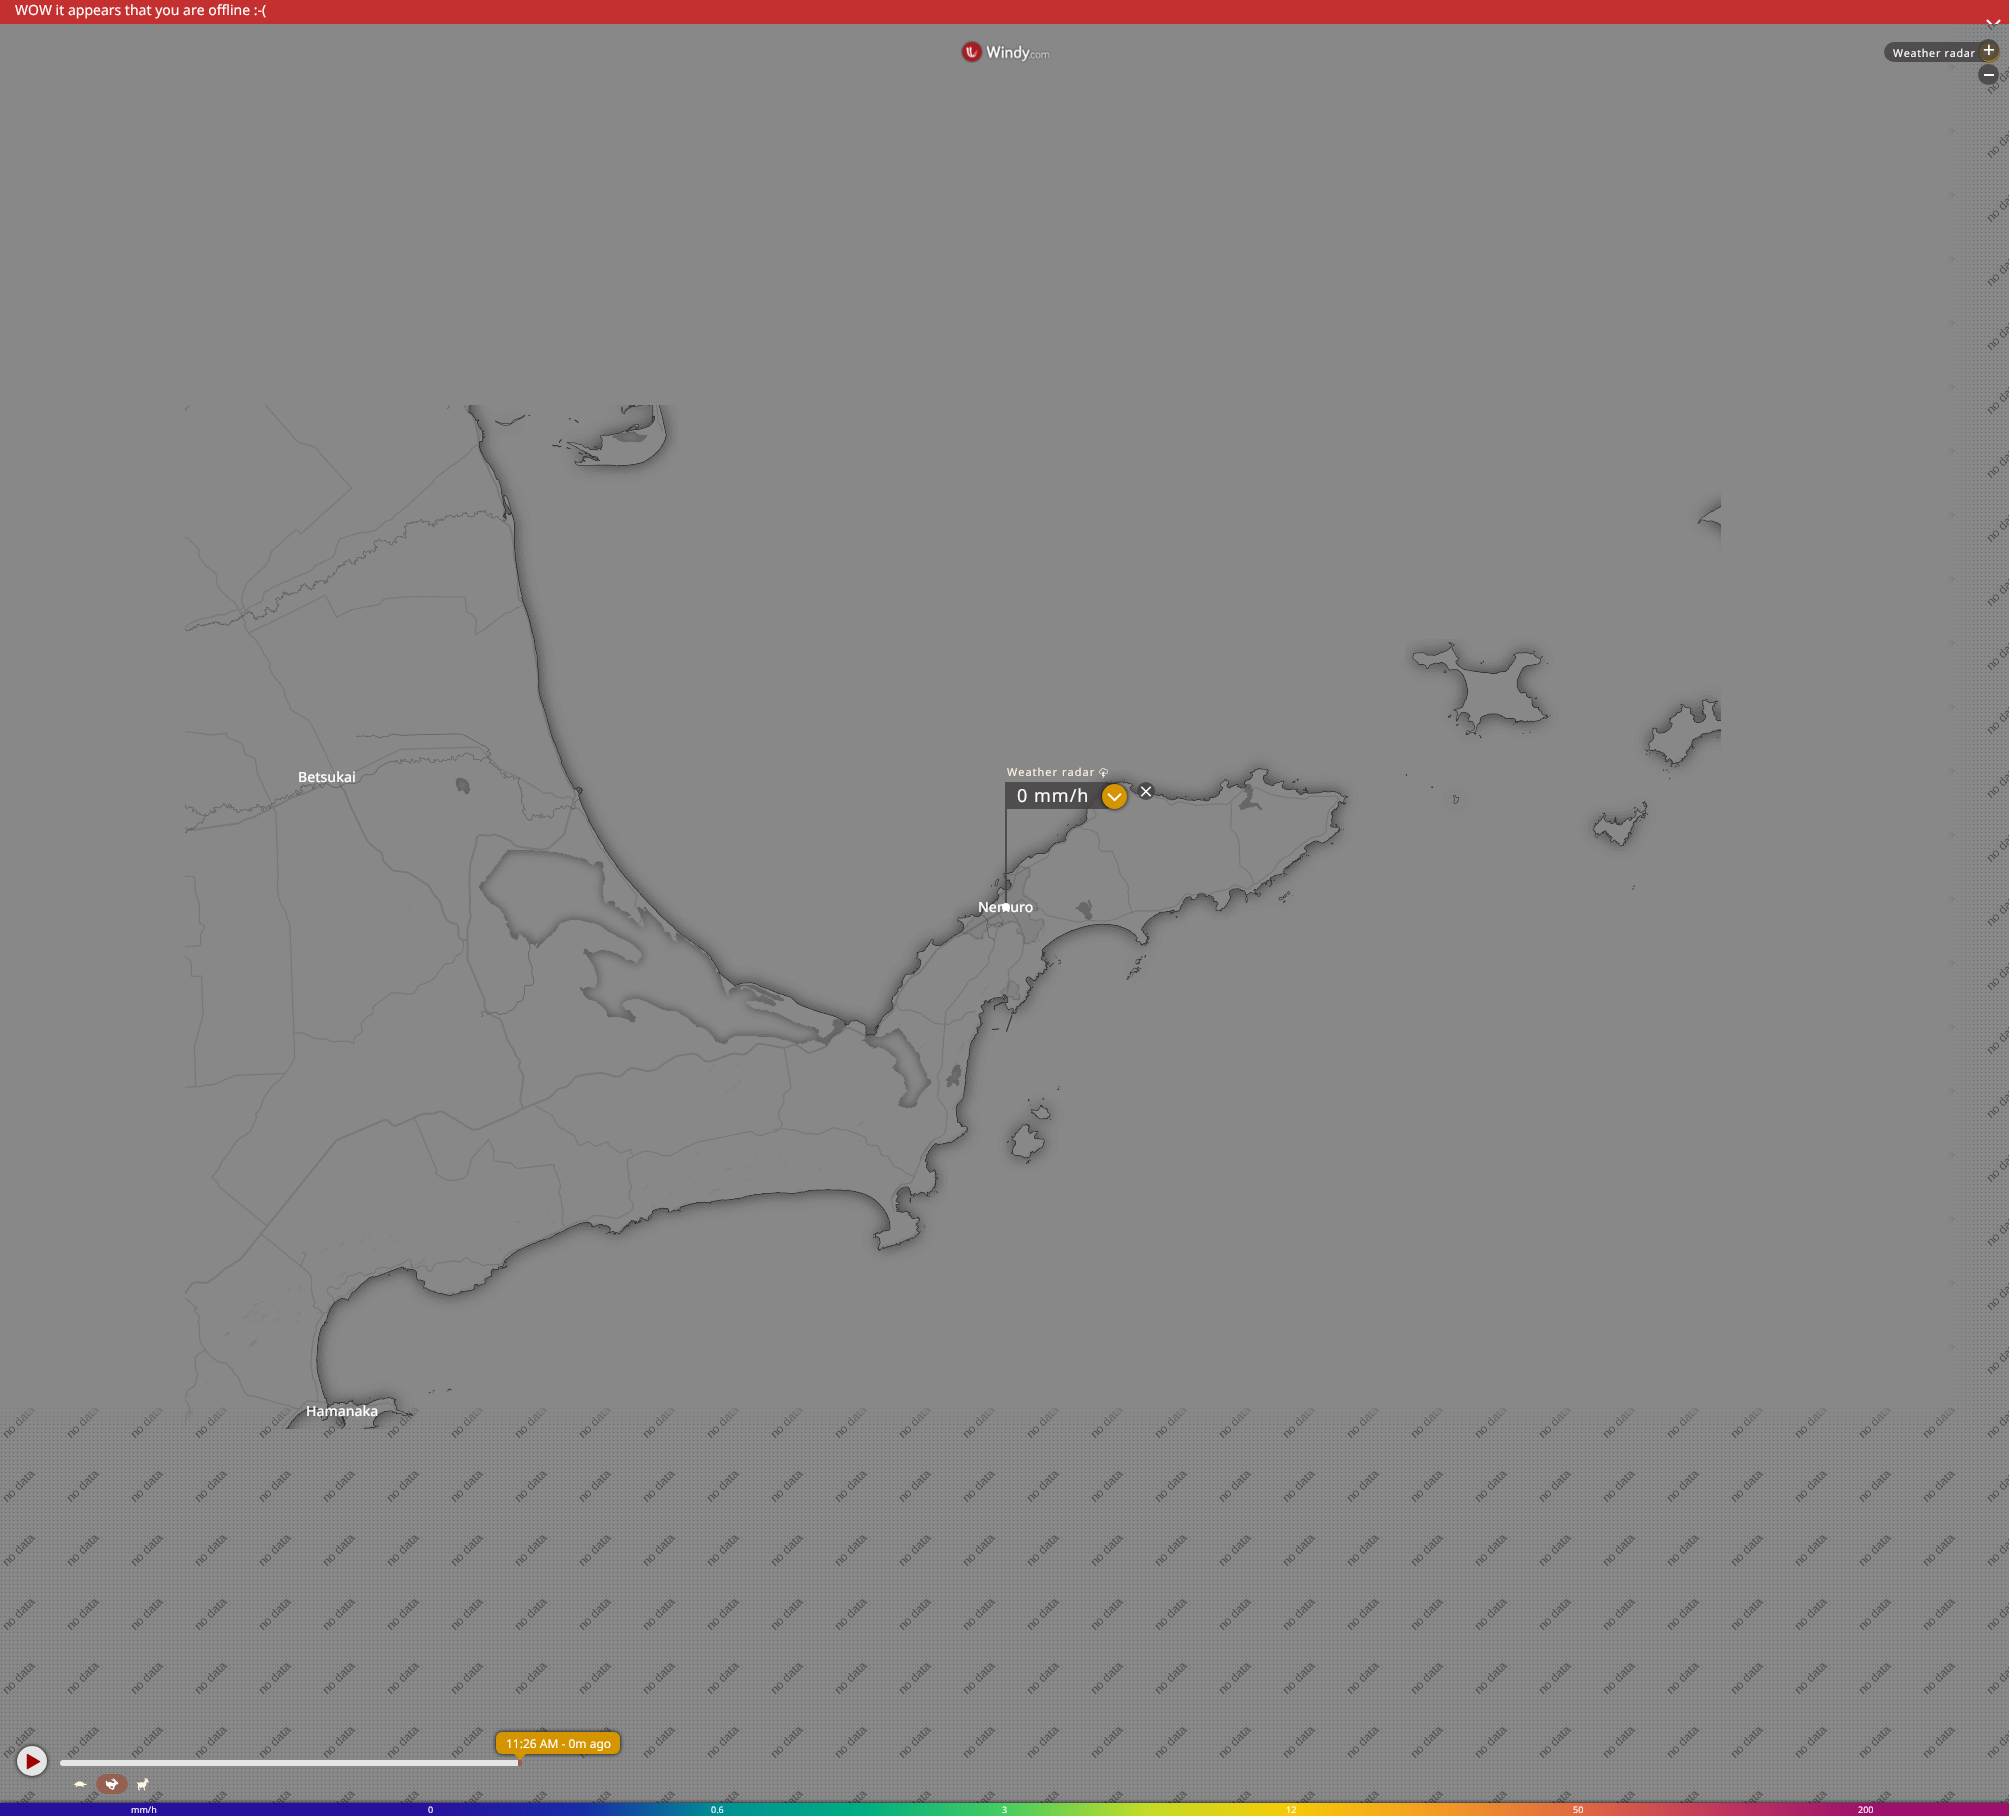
#include "include/core/SkBlurTypes.h"
#include "include/core/SkCanvas.h"
#include "include/core/SkData.h"
#include "include/core/SkFont.h"
#include "include/core/SkFontMgr.h"
#include "include/core/SkImage.h"
#include "include/core/SkMaskFilter.h"
#include "include/core/SkPaint.h"
#include "include/core/SkPathBuilder.h"
#include "include/core/SkTextBlob.h"
#include "include/effects/SkDashPathEffect.h"
#include "include/effects/SkGradientShader.h"
#include "include/utils/SkParsePath.h"

extern sk_sp<SkFontMgr> fontMgr;

void draw(SkCanvas* canvas) {
  SkPaint p;
  p.setAntiAlias(true);
  auto spacedText = [&](const char* s, float x, float y, const SkFont& font, const SkPaint& ink, float letter, float word) {
    std::vector<SkGlyphID> glyphs(font.countText(s, strlen(s), SkTextEncoding::kUTF8));
    std::vector<float> xs(glyphs.size());
    font.textToGlyphs(s, strlen(s), SkTextEncoding::kUTF8, glyphs);
    font.getXPos(glyphs, xs, x);
    float extra = 0;
    for (size_t i = 0; i < glyphs.size(); i++) {
      xs[i] += extra;
      extra += letter + word * (glyphs[i] == font.unicharToGlyph(' '));
    }
    canvas->drawTextBlob(SkTextBlob::MakeFromPosHGlyphs(glyphs, xs, y, font), 0, 0, ink);
  };
  canvas->clear(SK_ColorWHITE);
  p.setColor(SkColorSetRGB(196, 47, 47));
  canvas->drawRect(SkRect::MakeLTRB(0, 0, 2009, 24), p);
  canvas->drawImageRect(SkImages::DeferredFromEncodedData(SkData::MakeFromFileName("images/1.png")), SkRect::MakeLTRB(1986, 19, 2001, 24), SkSamplingOptions());
  canvas->drawImageRect(SkImages::DeferredFromEncodedData(SkData::MakeFromFileName("images/6.png")), SkRect::MakeLTRB(0, 24, 2009, 1803), SkSamplingOptions());
  canvas->drawImageRect(SkImages::DeferredFromEncodedData(SkData::MakeFromFileName("images/2.png")), SkRect::MakeLTRB(960, 40, 984, 63), SkSamplingOptions());
  canvas->drawImageRect(SkImages::DeferredFromEncodedData(SkData::MakeFromFileName("images/3.png")), SkRect::MakeLTRB(985, 44, 1051, 63), SkSamplingOptions());
  p.setColor(SkColorSetARGB(214, 68, 65, 65));
  canvas->drawRoundRect(SkRect::MakeLTRB(1884, 42, 1999, 62), 10, 10, p);
  p.setColor(SK_ColorBLACK);
  p.setMaskFilter(SkMaskFilter::MakeBlur(kNormal_SkBlurStyle, 1));
  canvas->drawRoundRect(SkRect::MakeLTRB(1979, 42, 1999, 62), 10, 10, p);
  p.setMaskFilter(nullptr);
  p.setColor(SkColorSetRGB(212, 149, 0));
  canvas->drawCircle(1989, 52, 10, p);
  canvas->drawImageRect(SkImages::DeferredFromEncodedData(SkData::MakeFromFileName("images/4.png")), SkRect::MakeLTRB(1983, 50, 1994, 57), SkSamplingOptions());
  p.setColor(SkColorSetARGB(214, 68, 65, 65));
  canvas->drawRoundRect(SkRect::MakeLTRB(1978, 39, 1999, 61), 10.5f, 10.5f, p);
  canvas->drawImageRect(SkImages::DeferredFromEncodedData(SkData::MakeFromFileName("images/5.png")), SkRect::MakeLTRB(1983, 44, 1995, 55), SkSamplingOptions());
  canvas->drawCircle(1988.5f, 74.5f, 10.5f, p);
  p.setColor(SK_ColorWHITE);
  canvas->drawRect(SkRect::MakeLTRB(1984, 74, 1994, 76), p);
  canvas->drawImageRect(SkImages::DeferredFromEncodedData(SkData::MakeFromFileName("images/7.png")), SkRect::MakeLTRB(185, 405, 441, 661), SkSamplingOptions());
  canvas->drawImageRect(SkImages::DeferredFromEncodedData(SkData::MakeFromFileName("images/8.png")), SkRect::MakeLTRB(441, 405, 678, 661), SkSamplingOptions());
  canvas->drawImageRect(SkImages::DeferredFromEncodedData(SkData::MakeFromFileName("images/9.png")), SkRect::MakeLTRB(1405, 639, 1465, 661), SkSamplingOptions());
  canvas->drawImageRect(SkImages::DeferredFromEncodedData(SkData::MakeFromFileName("images/10.png")), SkRect::MakeLTRB(1465, 491, 1721, 661), SkSamplingOptions());
  canvas->drawImageRect(SkImages::DeferredFromEncodedData(SkData::MakeFromFileName("images/11.png")), SkRect::MakeLTRB(185, 661, 441, 917), SkSamplingOptions());
  canvas->drawImageRect(SkImages::DeferredFromEncodedData(SkData::MakeFromFileName("images/12.png")), SkRect::MakeLTRB(441, 661, 681, 917), SkSamplingOptions());
  canvas->drawImageRect(SkImages::DeferredFromEncodedData(SkData::MakeFromFileName("images/13.png")), SkRect::MakeLTRB(953, 770, 1209, 917), SkSamplingOptions());
  canvas->drawImageRect(SkImages::DeferredFromEncodedData(SkData::MakeFromFileName("images/14.png")), SkRect::MakeLTRB(1209, 661, 1465, 917), SkSamplingOptions());
  canvas->drawImageRect(SkImages::DeferredFromEncodedData(SkData::MakeFromFileName("images/15.png")), SkRect::MakeLTRB(1465, 661, 1721, 890), SkSamplingOptions());
  canvas->drawImageRect(SkImages::DeferredFromEncodedData(SkData::MakeFromFileName("images/16.png")), SkRect::MakeLTRB(185, 917, 441, 1173), SkSamplingOptions());
  canvas->drawImageRect(SkImages::DeferredFromEncodedData(SkData::MakeFromFileName("images/17.png")), SkRect::MakeLTRB(441, 917, 697, 1173), SkSamplingOptions());
  canvas->drawImageRect(SkImages::DeferredFromEncodedData(SkData::MakeFromFileName("images/18.png")), SkRect::MakeLTRB(697, 917, 953, 1173), SkSamplingOptions());
  canvas->drawImageRect(SkImages::DeferredFromEncodedData(SkData::MakeFromFileName("images/19.png")), SkRect::MakeLTRB(953, 917, 1187, 1170), SkSamplingOptions());
  p.setColor(SkColorSetRGB(132, 132, 132));
  canvas->drawRect(SkRect::MakeLTRB(1212, 917, 1229, 920), p);
  canvas->drawImageRect(SkImages::DeferredFromEncodedData(SkData::MakeFromFileName("images/20.png")), SkRect::MakeLTRB(185, 1173, 441, 1429), SkSamplingOptions());
  canvas->drawImageRect(SkImages::DeferredFromEncodedData(SkData::MakeFromFileName("images/21.png")), SkRect::MakeLTRB(441, 1173, 697, 1393), SkSamplingOptions());
  canvas->drawImageRect(SkImages::DeferredFromEncodedData(SkData::MakeFromFileName("images/22.png")), SkRect::MakeLTRB(697, 1173, 948, 1261), SkSamplingOptions());
  p.setColor(SkColorSetARGB(214, 68, 65, 65));
  canvas->drawPath(SkPathBuilder().moveTo(1007, 782).lineTo(1105.5f, 782).cubicTo(1113, 782, 1119, 788, 1119, 795.5f).cubicTo(1119, 803, 1113, 809, 1105.5f, 809).lineTo(1007, 809).close().detach(), p);
  canvas->drawImageRect(SkImages::DeferredFromEncodedData(SkData::MakeFromFileName("images/23.png")), SkRect::MakeLTRB(1099, 768, 1108, 779), SkSamplingOptions());
  p.setColor(SK_ColorBLACK);
  p.setMaskFilter(SkMaskFilter::MakeBlur(kNormal_SkBlurStyle, 2));
  canvas->drawRoundRect(SkRect::MakeLTRB(1102, 784, 1127, 809), 12.5f, 12.5f, p);
  p.setMaskFilter(nullptr);
  p.setColor(SkColorSetRGB(212, 149, 0));
  canvas->drawCircle(1114.5f, 796.5f, 12.5f, p);
  canvas->drawImageRect(SkImages::DeferredFromEncodedData(SkData::MakeFromFileName("images/24.png")), SkRect::MakeLTRB(1107, 793, 1122, 802), SkSamplingOptions());
  p.setColor(SkColorSetARGB(214, 68, 65, 65));
  canvas->drawCircle(1146, 791, 9, p);
  canvas->drawImageRect(SkImages::DeferredFromEncodedData(SkData::MakeFromFileName("images/25.png")), SkRect::MakeLTRB(1140, 786, 1152, 797), SkSamplingOptions());
  p.setColor(SK_ColorBLACK);
  p.setMaskFilter(SkMaskFilter::MakeBlur(kNormal_SkBlurStyle, 2));
  canvas->drawRoundRect(SkRect::MakeLTRB(17, 1746, 47, 1776), 15, 15, p);
  p.setMaskFilter(nullptr);
  p.setColor(SkColorSetRGB(229, 229, 229));
  canvas->drawCircle(32, 1761, 15, p);
  canvas->drawImageRect(SkImages::DeferredFromEncodedData(SkData::MakeFromFileName("images/26.png")), SkRect::MakeLTRB(26, 1753, 41, 1770), SkSamplingOptions());
  canvas->drawRoundRect(SkRect::MakeLTRB(60, 1760, 520, 1766), 3, 3, p);
  p.setColor(SK_ColorBLACK);
  p.setMaskFilter(SkMaskFilter::MakeBlur(kNormal_SkBlurStyle, 2));
  canvas->drawRoundRect(SkRect::MakeLTRB(496, 1732, 620, 1754), 6, 6, p);
  p.setMaskFilter(nullptr);
  p.setColor(SkColorSetRGB(212, 149, 0));
  canvas->drawRoundRect(SkRect::MakeLTRB(496, 1732, 620, 1754), 6, 6, p);
  canvas->drawPath(SkPathBuilder().moveTo(514, 1754).lineTo(526, 1754).lineTo(520, 1760).close().detach(), p);
  p.setColor(SkColorSetRGB(148, 96, 81));
  canvas->drawRect(SkRect::MakeLTRB(518, 1760, 522, 1766), p);
  canvas->drawImageRect(SkImages::DeferredFromEncodedData(SkData::MakeFromFileName("images/27.png")), SkRect::MakeLTRB(73, 1781, 87, 1787), SkSamplingOptions());
  canvas->drawRoundRect(SkRect::MakeLTRB(96, 1774, 128, 1794), 10, 10, p);
  canvas->drawImageRect(SkImages::DeferredFromEncodedData(SkData::MakeFromFileName("images/28.png")), SkRect::MakeLTRB(105, 1778, 119, 1791), SkSamplingOptions());
  canvas->drawImageRect(SkImages::DeferredFromEncodedData(SkData::MakeFromFileName("images/29.png")), SkRect::MakeLTRB(137, 1778, 149, 1791), SkSamplingOptions());
  p.setColor(SK_ColorBLACK);
  p.setMaskFilter(SkMaskFilter::MakeBlur(kNormal_SkBlurStyle, 2));
  canvas->drawRect(SkRect::MakeLTRB(0, 1803, 2009, 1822), p);
  p.setMaskFilter(nullptr);
  {
    const SkColor colors[] = {SkColorSetRGB(40, 16, 159), SkColorSetRGB(40, 16, 159), SkColorSetRGB(24, 44, 168), SkColorSetRGB(0, 145, 148), SkColorSetRGB(0, 174, 129), SkColorSetRGB(70, 205, 96), SkColorSetRGB(195, 219, 38), SkColorSetRGB(245, 203, 8), SkColorSetRGB(244, 159, 33), SkColorSetRGB(223, 102, 68), SkColorSetRGB(190, 52, 94), SkColorSetRGB(157, 16, 109), SkColorSetRGB(157, 16, 109)};
    const float stops[] = {0, 0.21f, 0.29f, 0.36f, 0.43f, 0.5f, 0.57f, 0.64f, 0.71f, 0.79f, 0.86f, 0.93f, 1};
    const SkPoint ends[] = {{0, 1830}, {2009, 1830}};
    p.setShader(SkGradientShader::MakeLinear(ends, colors, stops, 13, SkTileMode::kClamp));
    p.setAlpha(255);
  }
  canvas->drawRect(SkRect::MakeLTRB(0, 1803, 2009, 1816), p);
  SkFont font1(fontMgr->matchFamilyStyle("Noto Sans", SkFontStyle::Normal()), 14);
  font1.setSubpixel(true);
  p.setShader(nullptr);
  p.setColor(SK_ColorWHITE);
  canvas->drawString("WOW it appears that you are offline :-(", 15, 15, font1, p);
  SkFont font2(fontMgr->matchFamilyStyle("Noto Sans", SkFontStyle::Normal()), 10.75f);
  font2.setSubpixel(true);
  spacedText("Weather radar", 1893, 57, font2, p, 0.7f, 0);
  SkFont font3(fontMgr->matchFamilyStyle("Noto Sans", SkFontStyle(500, SkFontStyle::kNormal_Width, SkFontStyle::kUpright_Slant)), 14);
  font3.setSubpixel(true);
  canvas->drawString("Betsukai", 298, 782, font3, p);
  canvas->drawString("Nemuro", 978, 912, font3, p);
  canvas->drawString("Hamanaka", 306, 1416, font3, p);
  p.setColor(SkColorSetARGB(214, 68, 65, 65));
  canvas->drawRect(SkRect::MakeLTRB(1005, 782, 1007, 907), p);
  p.setColor(SK_ColorWHITE);
  canvas->drawCircle(1006, 907, 4, p);
  SkFont font4(fontMgr->matchFamilyStyle("Noto Sans", SkFontStyle::Normal()), 11);
  font4.setSubpixel(true);
  p.setColor(SkColorSetRGB(255, 243, 225));
  spacedText("Weather radar", 1007, 776, font4, p, 1, 0);
  SkFont font5(fontMgr->matchFamilyStyle("Noto Sans", SkFontStyle::Normal()), 18);
  font5.setSubpixel(true);
  p.setColor(SK_ColorWHITE);
  spacedText("0 mm/h", 1017, 802, font5, p, 1, 0);
  SkFont font6(fontMgr->matchFamilyStyle("Noto Sans", SkFontStyle::Normal()), 12);
  font6.setSubpixel(true);
  canvas->drawString("11:26 AM - 0m ago", 506, 1748, font6, p);
  SkFont font7(fontMgr->matchFamilyStyle("Noto Sans", SkFontStyle::Normal()), 9);
  font7.setSubpixel(true);
  canvas->drawString("mm/h", 131, 1813, font7, p);
  canvas->drawString("0", 428, 1813, font7, p);
  canvas->drawString("0.6", 711, 1813, font7, p);
  canvas->drawString("3", 1002, 1813, font7, p);
  canvas->drawString("12", 1286, 1813, font7, p);
  canvas->drawString("50", 1573, 1813, font7, p);
  canvas->drawString("200", 1858, 1813, font7, p);
}
